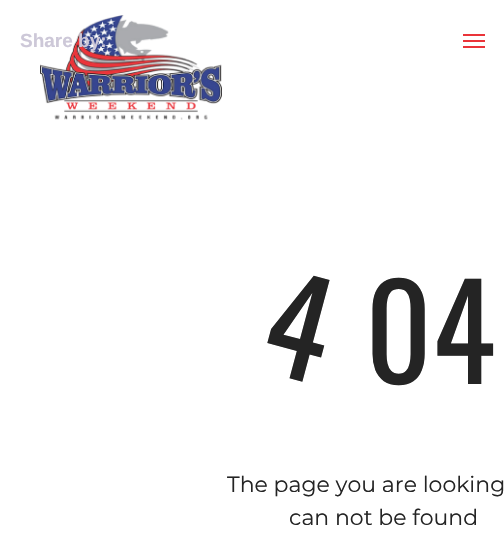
#include "include/core/SkBlurTypes.h"
#include "include/core/SkCanvas.h"
#include "include/core/SkData.h"
#include "include/core/SkFont.h"
#include "include/core/SkFontMgr.h"
#include "include/core/SkImage.h"
#include "include/core/SkMaskFilter.h"
#include "include/core/SkPaint.h"
#include "include/core/SkPathBuilder.h"
#include "include/core/SkTextBlob.h"
#include "include/effects/SkDashPathEffect.h"
#include "include/effects/SkGradientShader.h"
#include "include/utils/SkParsePath.h"

extern sk_sp<SkFontMgr> fontMgr;

void draw(SkCanvas* canvas) {
  SkPaint p;
  p.setAntiAlias(true);
  canvas->clear(SK_ColorWHITE);
  canvas->drawImageRect(SkImages::DeferredFromEncodedData(SkData::MakeFromFileName("images/1.png")), SkRect::MakeLTRB(40, 15, 222, 120), SkSamplingOptions());
  p.setColor(SkColorSetRGB(234, 52, 57));
  canvas->drawRect(SkRect::MakeLTRB(463, 34, 485, 36), p);
  canvas->drawRect(SkRect::MakeLTRB(463, 40, 485, 42), p);
  canvas->drawRect(SkRect::MakeLTRB(463, 46, 485, 48), p);
  SkFont font1(fontMgr->matchFamilyStyle("Liberation Sans", SkFontStyle::Bold()), 19);
  font1.setSubpixel(true);
  p.setColor(SkColorSetRGB(205, 200, 216));
  canvas->drawString("Share by:", 20, 47, font1, p);
  SkFont font2(fontMgr->matchFamilyStyle("Oswald", SkFontStyle::Normal()), 130);
  font2.setSubpixel(true);
  p.setColor(SkColorSetRGB(36, 36, 36));
  canvas->save();
  canvas->rotate(15, 255, 369);
  canvas->drawString("4", 255, 369, font2, p);
  canvas->restore();
  canvas->drawString("04", 365, 384, font2, p);
  SkFont font3(fontMgr->matchFamilyStyle("Montserrat", SkFontStyle::Normal()), 22);
  font3.setSubpixel(true);
  canvas->drawString("The page you are looking", 227, 492, font3, p);
  canvas->drawString("can not be found", 289, 525, font3, p);
}
